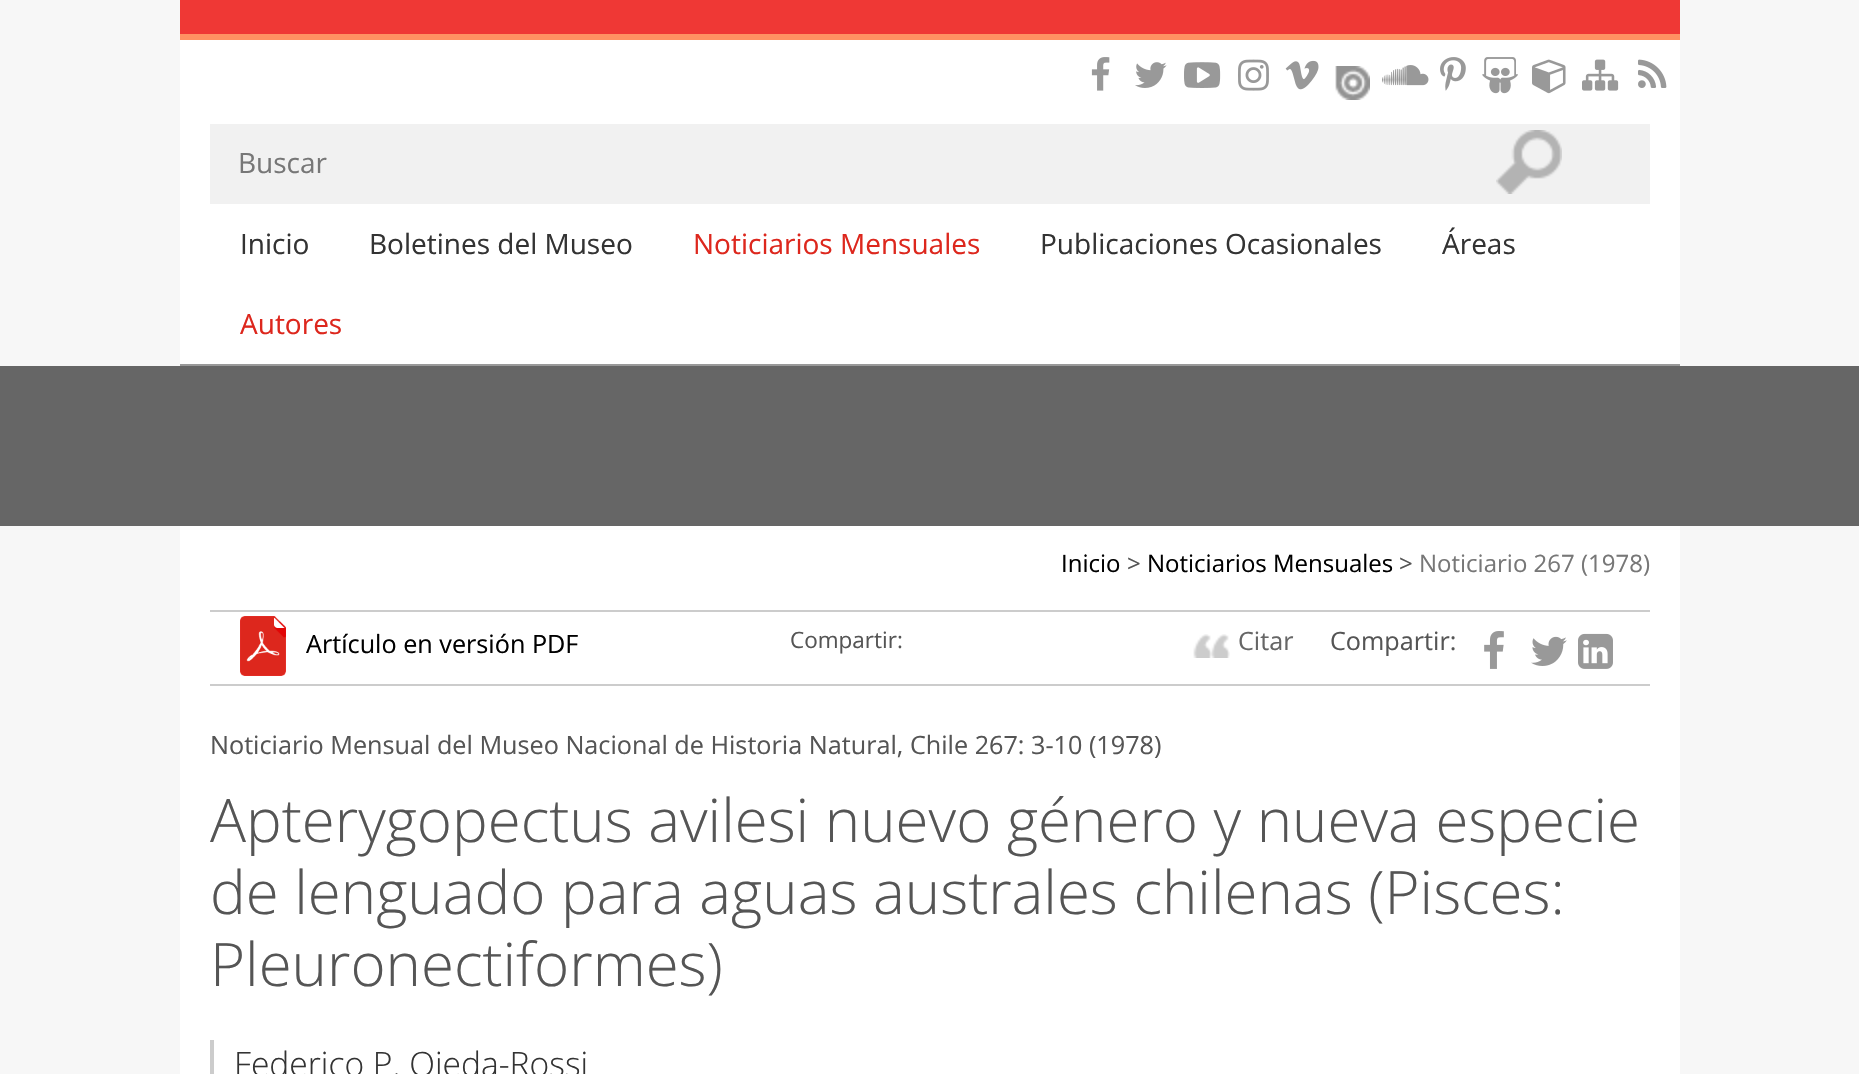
#include "include/core/SkBlurTypes.h"
#include "include/core/SkCanvas.h"
#include "include/core/SkData.h"
#include "include/core/SkFont.h"
#include "include/core/SkFontMgr.h"
#include "include/core/SkImage.h"
#include "include/core/SkMaskFilter.h"
#include "include/core/SkPaint.h"
#include "include/core/SkPathBuilder.h"
#include "include/core/SkTextBlob.h"
#include "include/effects/SkDashPathEffect.h"
#include "include/effects/SkGradientShader.h"
#include "include/utils/SkParsePath.h"

extern sk_sp<SkFontMgr> fontMgr;

void draw(SkCanvas* canvas) {
  SkPaint p;
  p.setAntiAlias(true);
  canvas->clear(SkColorSetRGB(247, 247, 247));
  p.setColor(SK_ColorWHITE);
  canvas->drawRect(SkRect::MakeLTRB(180, 40, 1680, 364), p);
  p.setColor(SkColorSetRGB(239, 56, 53));
  canvas->drawRect(SkRect::MakeLTRB(180, 0, 1680, 34), p);
  p.setColor(SkColorSetRGB(255, 145, 98));
  canvas->drawRect(SkRect::MakeLTRB(180, 34, 1680, 40), p);
  canvas->drawImageRect(SkImages::DeferredFromEncodedData(SkData::MakeFromFileName("images/1.png")), SkRect::MakeLTRB(1091, 57, 1110, 91), SkSamplingOptions());
  canvas->drawImageRect(SkImages::DeferredFromEncodedData(SkData::MakeFromFileName("images/2.png")), SkRect::MakeLTRB(1135, 62, 1167, 88), SkSamplingOptions());
  canvas->drawImageRect(SkImages::DeferredFromEncodedData(SkData::MakeFromFileName("images/3.png")), SkRect::MakeLTRB(1184, 62, 1221, 88), SkSamplingOptions());
  canvas->drawImageRect(SkImages::DeferredFromEncodedData(SkData::MakeFromFileName("images/4.png")), SkRect::MakeLTRB(1238, 59, 1269, 91), SkSamplingOptions());
  canvas->drawImageRect(SkImages::DeferredFromEncodedData(SkData::MakeFromFileName("images/5.png")), SkRect::MakeLTRB(1285, 60, 1319, 90), SkSamplingOptions());
  canvas->drawImageRect(SkImages::DeferredFromEncodedData(SkData::MakeFromFileName("images/6.png")), SkRect::MakeLTRB(1335, 66, 1370, 100), SkSamplingOptions());
  canvas->drawImageRect(SkImages::DeferredFromEncodedData(SkData::MakeFromFileName("images/7.png")), SkRect::MakeLTRB(1382, 65, 1429, 86), SkSamplingOptions());
  canvas->drawImageRect(SkImages::DeferredFromEncodedData(SkData::MakeFromFileName("images/8.png")), SkRect::MakeLTRB(1440, 57, 1466, 91), SkSamplingOptions());
  canvas->drawImageRect(SkImages::DeferredFromEncodedData(SkData::MakeFromFileName("images/9.png")), SkRect::MakeLTRB(1482, 57, 1518, 94), SkSamplingOptions());
  canvas->drawImageRect(SkImages::DeferredFromEncodedData(SkData::MakeFromFileName("images/10.png")), SkRect::MakeLTRB(1532, 59, 1566, 94), SkSamplingOptions());
  canvas->drawImageRect(SkImages::DeferredFromEncodedData(SkData::MakeFromFileName("images/11.png")), SkRect::MakeLTRB(1582, 59, 1619, 91), SkSamplingOptions());
  canvas->drawImageRect(SkImages::DeferredFromEncodedData(SkData::MakeFromFileName("images/12.png")), SkRect::MakeLTRB(1638, 59, 1667, 88), SkSamplingOptions());
  p.setColor(SkColorSetRGB(153, 153, 153));
  canvas->drawRect(SkRect::MakeLTRB(180, 364, 1680, 366), p);
  p.setColor(SkColorSetRGB(241, 241, 241));
  canvas->drawRect(SkRect::MakeLTRB(210, 124, 1650, 204), p);
  canvas->drawImageRect(SkImages::DeferredFromEncodedData(SkData::MakeFromFileName("images/13.png")), SkRect::MakeLTRB(1496, 130, 1562, 194), SkSamplingOptions());
  p.setColor(SkColorSetRGB(102, 102, 102));
  canvas->drawRect(SkRect::MakeLTRB(0, 366, 1859, 526), p);
  p.setColor(SK_ColorWHITE);
  canvas->drawRect(SkRect::MakeLTRB(180, 526, 1680, 1074), p);
  p.setColor(SkColorSetRGB(204, 204, 204));
  canvas->drawRect(SkRect::MakeLTRB(210, 610, 1650, 612), p);
  canvas->drawRect(SkRect::MakeLTRB(210, 684, 1650, 686), p);
  canvas->drawImageRect(SkImages::DeferredFromEncodedData(SkData::MakeFromFileName("images/14.png")), SkRect::MakeLTRB(240, 616, 286, 676), SkSamplingOptions());
  canvas->drawImageRect(SkImages::DeferredFromEncodedData(SkData::MakeFromFileName("images/15.png")), SkRect::MakeLTRB(1484, 631, 1504, 669), SkSamplingOptions());
  canvas->drawImageRect(SkImages::DeferredFromEncodedData(SkData::MakeFromFileName("images/16.png")), SkRect::MakeLTRB(1531, 636, 1567, 666), SkSamplingOptions());
  canvas->drawImageRect(SkImages::DeferredFromEncodedData(SkData::MakeFromFileName("images/17.png")), SkRect::MakeLTRB(1578, 633, 1613, 669), SkSamplingOptions());
  canvas->drawImageRect(SkImages::DeferredFromEncodedData(SkData::MakeFromFileName("images/18.png")), SkRect::MakeLTRB(1193, 634, 1230, 658), SkSamplingOptions());
  canvas->drawRect(SkRect::MakeLTRB(210, 1040, 214, 1074), p);
  SkFont font1(fontMgr->matchFamilyStyle("Open Sans", SkFontStyle::Normal()), 28);
  font1.setSubpixel(true);
  p.setColor(SkColorSetRGB(119, 119, 119));
  canvas->drawString("Buscar", 238, 173, font1, p);
  p.setColor(SkColorSetRGB(51, 51, 51));
  canvas->drawString("Inicio", 240, 254, font1, p);
  canvas->drawString("Boletines del Museo", 369, 254, font1, p);
  p.setColor(SkColorSetRGB(221, 39, 29));
  canvas->drawString("Noticiarios Mensuales", 693, 254, font1, p);
  p.setColor(SkColorSetRGB(51, 51, 51));
  canvas->drawString("Publicaciones Ocasionales", 1040, 254, font1, p);
  canvas->drawString("Áreas", 1442, 254, font1, p);
  p.setColor(SkColorSetRGB(221, 39, 29));
  canvas->drawString("Autores", 240, 334, font1, p);
  SkFont font2(fontMgr->matchFamilyStyle("Open Sans", SkFontStyle::Normal()), 24);
  font2.setSubpixel(true);
  p.setColor(SK_ColorBLACK);
  canvas->drawString("Inicio", 1061, 572, font2, p);
  p.setColor(SkColorSetRGB(85, 85, 85));
  canvas->drawString(">", 1127, 572, font2, p);
  p.setColor(SK_ColorBLACK);
  canvas->drawString("Noticiarios Mensuales", 1147, 572, font2, p);
  p.setColor(SkColorSetRGB(85, 85, 85));
  canvas->drawString(">", 1399, 572, font2, p);
  p.setColor(SkColorSetRGB(119, 119, 119));
  canvas->drawString("Noticiario 267 (1978)", 1419, 572, font2, p);
  SkFont font3(fontMgr->matchFamilyStyle("Open Sans", SkFontStyle::Normal()), 25.2f);
  font3.setSubpixel(true);
  p.setColor(SK_ColorBLACK);
  canvas->drawString("Artículo en versión PDF", 306, 653, font3, p);
  SkFont font4(fontMgr->matchFamilyStyle("Open Sans", SkFontStyle::Normal()), 22.5f);
  font4.setSubpixel(true);
  p.setColor(SkColorSetRGB(85, 85, 85));
  canvas->drawString("Compartir:", 790, 648, font4, p);
  canvas->drawString("Compartir:", 1330, 650, font3, p);
  p.setColor(SkColorSetRGB(102, 102, 102));
  canvas->drawString("Citar", 1238, 650, font3, p);
  p.setColor(SkColorSetRGB(85, 85, 85));
  canvas->drawString("Noticiario Mensual del Museo Nacional de Historia Natural, Chile 267: 3-10 (1978)", 210, 754, font3, p);
  SkFont font5(fontMgr->matchFamilyStyle("Open Sans", SkFontStyle(300, SkFontStyle::kNormal_Width, SkFontStyle::kUpright_Slant)), 60);
  font5.setSubpixel(true);
  canvas->drawString("Apterygopectus avilesi nuevo género y nueva especie", 210, 842, font5, p);
  canvas->drawString("de lenguado para aguas australes chilenas (Pisces:", 210, 914, font5, p);
  canvas->drawString("Pleuronectiformes)", 210, 986, font5, p);
  SkFont font6(fontMgr->matchFamilyStyle("Open Sans", SkFontStyle(300, SkFontStyle::kNormal_Width, SkFontStyle::kUpright_Slant)), 33.6f);
  font6.setSubpixel(true);
  p.setColor(SkColorSetRGB(51, 51, 51));
  canvas->drawString("Federico P. Ojeda-Rossi", 234, 1076, font6, p);
}
